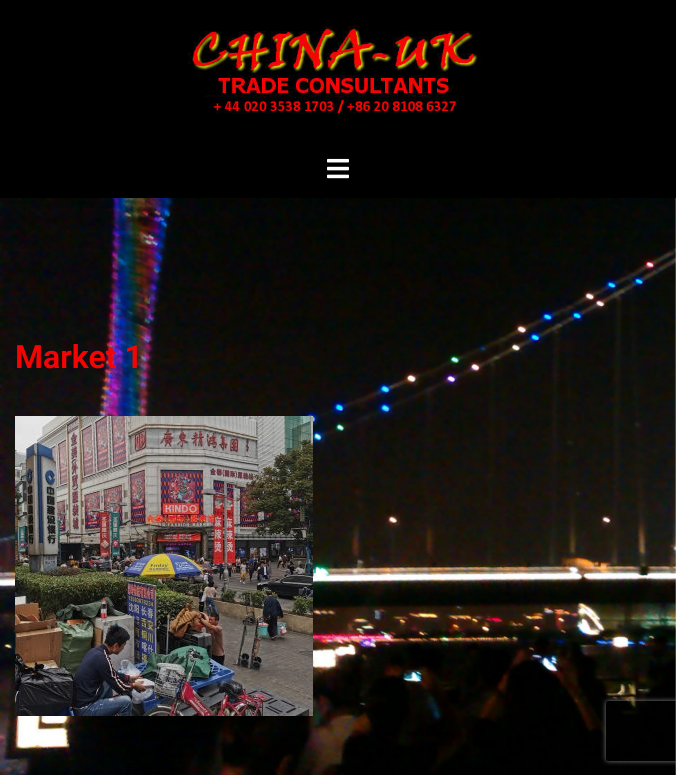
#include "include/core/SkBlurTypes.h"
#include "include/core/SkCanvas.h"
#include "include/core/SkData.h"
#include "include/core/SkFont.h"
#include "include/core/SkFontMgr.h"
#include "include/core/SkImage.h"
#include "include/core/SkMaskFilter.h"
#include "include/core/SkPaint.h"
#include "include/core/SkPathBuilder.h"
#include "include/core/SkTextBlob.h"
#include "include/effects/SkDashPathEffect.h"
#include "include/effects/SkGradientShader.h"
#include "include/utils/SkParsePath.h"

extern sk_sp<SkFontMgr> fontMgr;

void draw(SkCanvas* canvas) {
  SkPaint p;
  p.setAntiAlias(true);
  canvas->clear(SK_ColorWHITE);
  canvas->drawImageRect(SkImages::DeferredFromEncodedData(SkData::MakeFromFileName("images/1.png")), SkRect::MakeLTRB(0, 198, 676, 775), SkSamplingOptions());
  p.setColor(SK_ColorBLACK);
  canvas->drawRect(SkRect::MakeLTRB(0, 0, 676, 198), p);
  canvas->drawImageRect(SkImages::DeferredFromEncodedData(SkData::MakeFromFileName("images/2.png")), SkRect::MakeLTRB(188, 25, 481, 114), SkSamplingOptions());
  canvas->drawImageRect(SkImages::DeferredFromEncodedData(SkData::MakeFromFileName("images/3.png")), SkRect::MakeLTRB(327, 158, 349, 179), SkSamplingOptions());
  canvas->drawImageRect(SkImages::DeferredFromEncodedData(SkData::MakeFromFileName("images/4.png")), SkRect::MakeLTRB(15, 416, 313, 716), SkSamplingOptions());
  canvas->save();
  canvas->clipPath(SkPathBuilder(SkPathFillType::kEvenOdd).moveTo(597, 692).lineTo(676, 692).lineTo(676, 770).lineTo(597, 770).close().moveTo(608, 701).lineTo(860, 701).cubicTo(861, 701, 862, 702, 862, 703).lineTo(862, 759).cubicTo(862, 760, 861, 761, 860, 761).lineTo(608, 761).cubicTo(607, 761, 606, 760, 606, 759).lineTo(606, 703).cubicTo(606, 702, 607, 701, 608, 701).close().detach(), true);
  p.setColor(SkColorSetRGB(128, 128, 128));
  p.setMaskFilter(SkMaskFilter::MakeBlur(kNormal_SkBlurStyle, 2.5f));
  canvas->drawRoundRect(SkRect::MakeLTRB(606, 701, 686, 761), 2, 2, p);
  p.setMaskFilter(nullptr);
  canvas->restore();
  SkFont font1(fontMgr->matchFamilyStyle("Roboto", SkFontStyle(600, SkFontStyle::kNormal_Width, SkFontStyle::kUpright_Slant)), 32);
  font1.setSubpixel(true);
  p.setColor(SkColorSetRGB(246, 4, 4));
  canvas->drawString("Market 1", 15, 368, font1, p);
}
